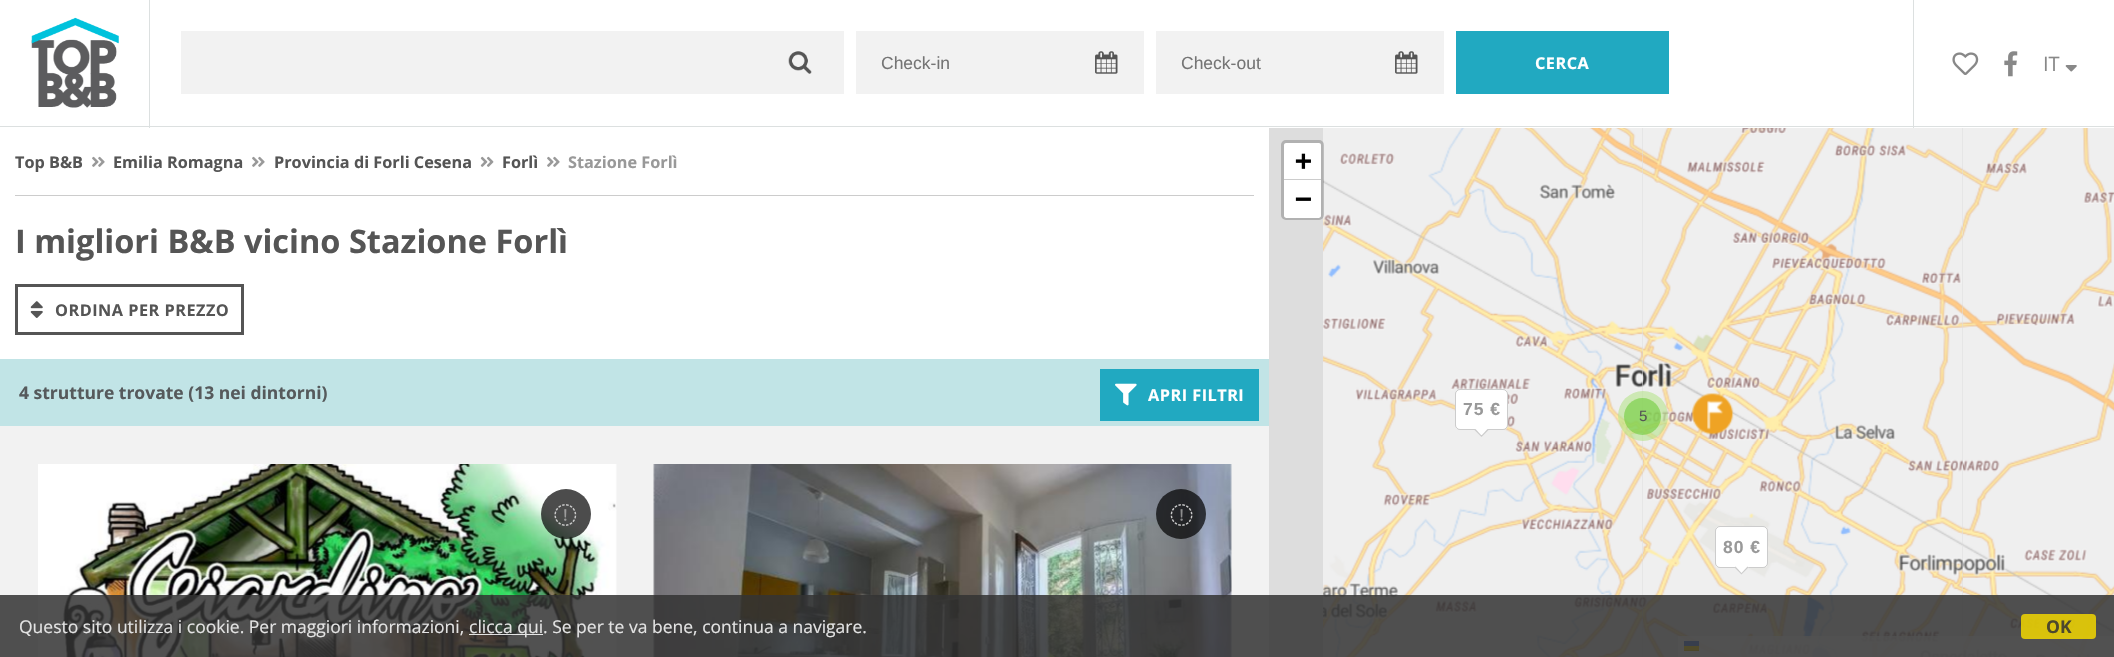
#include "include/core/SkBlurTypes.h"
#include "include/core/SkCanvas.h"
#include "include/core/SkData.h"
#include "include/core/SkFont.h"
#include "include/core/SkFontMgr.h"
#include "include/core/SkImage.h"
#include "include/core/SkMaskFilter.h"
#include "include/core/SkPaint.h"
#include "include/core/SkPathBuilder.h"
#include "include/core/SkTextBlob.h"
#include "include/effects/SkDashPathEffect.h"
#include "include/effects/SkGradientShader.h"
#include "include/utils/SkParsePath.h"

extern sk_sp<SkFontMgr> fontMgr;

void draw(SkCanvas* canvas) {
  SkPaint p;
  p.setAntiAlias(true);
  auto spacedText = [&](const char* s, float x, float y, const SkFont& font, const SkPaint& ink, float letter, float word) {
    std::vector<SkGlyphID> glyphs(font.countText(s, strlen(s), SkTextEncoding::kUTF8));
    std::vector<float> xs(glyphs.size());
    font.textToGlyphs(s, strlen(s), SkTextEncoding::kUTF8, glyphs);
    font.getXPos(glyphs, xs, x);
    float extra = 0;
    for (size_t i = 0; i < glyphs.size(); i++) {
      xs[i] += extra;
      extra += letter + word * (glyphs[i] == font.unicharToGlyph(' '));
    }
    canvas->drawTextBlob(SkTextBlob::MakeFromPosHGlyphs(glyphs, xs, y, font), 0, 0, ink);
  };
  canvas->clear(SkColorSetRGB(242, 242, 242));
  p.setColor(SK_ColorWHITE);
  canvas->drawRect(SkRect::MakeLTRB(0, 0, 2114, 128), p);
  p.setColor(SkColorSetRGB(220, 224, 224));
  canvas->drawRect(SkRect::MakeLTRB(0, 126, 2114, 127), p);
  canvas->drawRect(SkRect::MakeLTRB(149, 0, 150, 128), p);
  canvas->drawImageRect(SkImages::DeferredFromEncodedData(SkData::MakeFromFileName("images/1.png")), SkRect::MakeLTRB(31, 17, 119, 108), SkSamplingOptions());
  p.setColor(SkColorSetRGB(242, 242, 242));
  canvas->drawRect(SkRect::MakeLTRB(181, 31, 844, 94), p);
  canvas->drawImageRect(SkImages::DeferredFromEncodedData(SkData::MakeFromFileName("images/2.png")), SkRect::MakeLTRB(788, 51, 812, 74), SkSamplingOptions());
  canvas->drawRect(SkRect::MakeLTRB(856, 31, 1144, 94), p);
  canvas->drawImageRect(SkImages::DeferredFromEncodedData(SkData::MakeFromFileName("images/3.png")), SkRect::MakeLTRB(1095, 51, 1118, 74), SkSamplingOptions());
  canvas->drawRect(SkRect::MakeLTRB(1156, 31, 1444, 94), p);
  canvas->drawImageRect(SkImages::DeferredFromEncodedData(SkData::MakeFromFileName("images/3.png")), SkRect::MakeLTRB(1395, 51, 1418, 74), SkSamplingOptions());
  p.setColor(SkColorSetRGB(33, 169, 193));
  canvas->drawRect(SkRect::MakeLTRB(1456, 31, 1669, 94), p);
  p.setColor(SkColorSetRGB(220, 224, 224));
  canvas->drawRect(SkRect::MakeLTRB(1913, 0, 1914, 128), p);
  canvas->drawImageRect(SkImages::DeferredFromEncodedData(SkData::MakeFromFileName("images/4.png")), SkRect::MakeLTRB(1952, 52, 1979, 75), SkSamplingOptions());
  canvas->drawImageRect(SkImages::DeferredFromEncodedData(SkData::MakeFromFileName("images/5.png")), SkRect::MakeLTRB(2004, 51, 2018, 77), SkSamplingOptions());
  canvas->drawImageRect(SkImages::DeferredFromEncodedData(SkData::MakeFromFileName("images/6.png")), SkRect::MakeLTRB(2065, 65, 2077, 72), SkSamplingOptions());
  p.setColor(SK_ColorWHITE);
  canvas->drawRect(SkRect::MakeLTRB(0, 128, 1269, 359), p);
  p.setColor(SkColorSetRGB(204, 204, 204));
  canvas->drawRect(SkRect::MakeLTRB(15, 195, 1254, 196), p);
  canvas->drawImageRect(SkImages::DeferredFromEncodedData(SkData::MakeFromFileName("images/7.png")), SkRect::MakeLTRB(92, 156, 105, 167), SkSamplingOptions());
  canvas->drawImageRect(SkImages::DeferredFromEncodedData(SkData::MakeFromFileName("images/7.png")), SkRect::MakeLTRB(252, 156, 265, 167), SkSamplingOptions());
  canvas->drawImageRect(SkImages::DeferredFromEncodedData(SkData::MakeFromFileName("images/8.png")), SkRect::MakeLTRB(480, 156, 494, 167), SkSamplingOptions());
  canvas->drawImageRect(SkImages::DeferredFromEncodedData(SkData::MakeFromFileName("images/7.png")), SkRect::MakeLTRB(547, 156, 560, 167), SkSamplingOptions());
  p.setStyle(SkPaint::kStroke_Style);
  p.setStrokeWidth(3);
  p.setColor(SkColorSetRGB(85, 85, 85));
  canvas->drawRect(SkRect::MakeLTRB(16.5f, 285.5f, 242.5f, 333.5f), p);
  canvas->drawImageRect(SkImages::DeferredFromEncodedData(SkData::MakeFromFileName("images/9.png")), SkRect::MakeLTRB(30, 301, 43, 318), SkSamplingOptions());
  p.setStyle(SkPaint::kFill_Style);
  p.setColor(SkColorSetRGB(193, 228, 230));
  canvas->drawRect(SkRect::MakeLTRB(0, 359, 1269, 426), p);
  p.setColor(SkColorSetRGB(33, 169, 193));
  canvas->drawRect(SkRect::MakeLTRB(1100, 369, 1259, 421), p);
  canvas->drawImageRect(SkImages::DeferredFromEncodedData(SkData::MakeFromFileName("images/10.png")), SkRect::MakeLTRB(1115, 383, 1137, 406), SkSamplingOptions());
  canvas->drawImageRect(SkImages::DeferredFromEncodedData(SkData::MakeFromFileName("images/11.png")), SkRect::MakeLTRB(38, 464, 617, 657), SkSamplingOptions());
  p.setColor(SkColorSetARGB(179, 0, 0, 0));
  canvas->drawCircle(566, 514, 25, p);
  canvas->drawImageRect(SkImages::DeferredFromEncodedData(SkData::MakeFromFileName("images/12.png")), SkRect::MakeLTRB(554, 504, 577, 526), SkSamplingOptions());
  canvas->drawImageRect(SkImages::DeferredFromEncodedData(SkData::MakeFromFileName("images/13.png")), SkRect::MakeLTRB(653, 464, 1232, 657), SkSamplingOptions());
  canvas->drawCircle(1181, 514, 25, p);
  canvas->drawImageRect(SkImages::DeferredFromEncodedData(SkData::MakeFromFileName("images/14.png")), SkRect::MakeLTRB(1170, 504, 1193, 526), SkSamplingOptions());
  p.setColor(SkColorSetRGB(221, 221, 221));
  canvas->drawRect(SkRect::MakeLTRB(1269, 128, 1963, 657), p);
  canvas->drawImageRect(SkImages::DeferredFromEncodedData(SkData::MakeFromFileName("images/15.png")), SkRect::MakeLTRB(1323, 128, 1643, 444), SkSamplingOptions());
  p.setStyle(SkPaint::kStroke_Style);
  p.setColor(SkColorSetARGB(51, 0, 0, 0));
  canvas->drawRoundRect(SkRect::MakeLTRB(1282.5f, 141.5f, 1322.5f, 218.5f), 3.5f, 3.5f, p);
  p.setStyle(SkPaint::kFill_Style);
  p.setColor(SK_ColorWHITE);
  canvas->drawPath(SkPathBuilder().moveTo(1286.5f, 143).lineTo(1318.5f, 143).cubicTo(1320, 143, 1321, 144, 1321, 145.5f).lineTo(1321, 180).lineTo(1284, 180).lineTo(1284, 145.5f).cubicTo(1284, 144, 1285, 143, 1286.5f, 143).close().detach(), p);
  p.setColor(SkColorSetRGB(204, 204, 204));
  canvas->drawRect(SkRect::MakeLTRB(1284, 179, 1321, 180), p);
  p.setColor(SK_ColorWHITE);
  canvas->drawPath(SkPathBuilder().moveTo(1284, 180).lineTo(1321, 180).lineTo(1321, 215.5f).cubicTo(1321, 217, 1320, 218, 1318.5f, 218).lineTo(1286.5f, 218).cubicTo(1285, 218, 1284, 217, 1284, 215.5f).close().detach(), p);
  canvas->drawImageRect(SkImages::DeferredFromEncodedData(SkData::MakeFromFileName("images/19.png")), SkRect::MakeLTRB(1643, 444, 1963, 657), SkSamplingOptions());
  canvas->drawImageRect(SkImages::DeferredFromEncodedData(SkData::MakeFromFileName("images/20.png")), SkRect::MakeLTRB(1963, 444, 2114, 657), SkSamplingOptions());
  p.setColor(SkColorSetARGB(204, 255, 255, 255));
  canvas->drawRect(SkRect::MakeLTRB(1678, 636, 2114, 657), p);
  p.setColor(SkColorSetRGB(76, 123, 225));
  canvas->drawRect(SkRect::MakeLTRB(1684, 641, 1699, 646), p);
  p.setColor(SkColorSetRGB(255, 213, 0));
  canvas->drawRect(SkRect::MakeLTRB(1684, 646, 1699, 650), p);
  p.setColor(SkColorSetRGB(224, 188, 0));
  canvas->drawRect(SkRect::MakeLTRB(1684, 650, 1699, 651), p);
  canvas->drawImageRect(SkImages::DeferredFromEncodedData(SkData::MakeFromFileName("images/16.png")), SkRect::MakeLTRB(1643, 128, 1963, 444), SkSamplingOptions());
  canvas->drawImageRect(SkImages::DeferredFromEncodedData(SkData::MakeFromFileName("images/17.png")), SkRect::MakeLTRB(1963, 128, 2114, 444), SkSamplingOptions());
  canvas->drawImageRect(SkImages::DeferredFromEncodedData(SkData::MakeFromFileName("images/18.png")), SkRect::MakeLTRB(1323, 444, 1643, 657), SkSamplingOptions());
  p.setColor(SK_ColorWHITE);
  canvas->drawRoundRect(SkRect::MakeLTRB(1455, 389, 1508, 430), 5, 5, p);
  p.setStyle(SkPaint::kStroke_Style);
  p.setStrokeWidth(1);
  p.setColor(SkColorSetARGB(51, 0, 0, 0));
  canvas->drawRoundRect(SkRect::MakeLTRB(1455.5f, 389.5f, 1507.5f, 429.5f), 4.5f, 4.5f, p);
  p.setStyle(SkPaint::kFill_Style);
  p.setColor(SK_ColorWHITE);
  canvas->drawPath(SkPathBuilder().moveTo(1481.5f, 423).lineTo(1488.5f, 430).lineTo(1481.5f, 437).lineTo(1474.5f, 430).close().detach(), p);
  p.setColor(SkColorSetARGB(51, 0, 0, 0));
  canvas->drawPath(SkPathBuilder().moveTo(1488.5f, 430).lineTo(1481.5f, 437).lineTo(1481.5f, 435.5f).lineTo(1487.5f, 429).close().detach(), p);
  canvas->drawPath(SkPathBuilder().moveTo(1481.5f, 437).lineTo(1474.5f, 430).lineTo(1475.5f, 429).lineTo(1481.5f, 435.5f).close().detach(), p);
  p.setColor(SkColorSetARGB(153, 181, 226, 140));
  canvas->drawCircle(1643, 416, 25, p);
  p.setColor(SkColorSetARGB(153, 110, 204, 57));
  canvas->drawCircle(1642.5f, 416.5f, 18.5f, p);
  canvas->drawImageRect(SkImages::DeferredFromEncodedData(SkData::MakeFromFileName("images/21.png")), SkRect::MakeLTRB(1692, 393, 1734, 435), SkSamplingOptions());
  p.setColor(SK_ColorWHITE);
  canvas->drawRoundRect(SkRect::MakeLTRB(1715, 526, 1768, 568), 5, 5, p);
  p.setStyle(SkPaint::kStroke_Style);
  p.setColor(SkColorSetARGB(51, 0, 0, 0));
  canvas->drawRoundRect(SkRect::MakeLTRB(1715.5f, 526.5f, 1767.5f, 567.5f), 4.5f, 4.5f, p);
  p.setStyle(SkPaint::kFill_Style);
  p.setColor(SK_ColorWHITE);
  canvas->drawPath(SkPathBuilder().moveTo(1741.5f, 560.5f).lineTo(1748.5f, 567.5f).lineTo(1741.5f, 574.5f).lineTo(1734.5f, 567.5f).close().detach(), p);
  p.setColor(SkColorSetRGB(204, 204, 204));
  canvas->drawPath(SkPathBuilder().moveTo(1748.5f, 567.5f).lineTo(1741.5f, 574.5f).lineTo(1741.5f, 573).lineTo(1747.5f, 566.5f).close().detach(), p);
  p.setColor(SkColorSetARGB(51, 0, 0, 0));
  canvas->drawPath(SkPathBuilder().moveTo(1741.5f, 574.5f).lineTo(1734.5f, 567.5f).lineTo(1735.5f, 566.5f).lineTo(1741.5f, 573).close().detach(), p);
  p.setColor(SkColorSetARGB(217, 51, 51, 51));
  canvas->drawRect(SkRect::MakeLTRB(0, 595, 2114, 657), p);
  p.setColor(SkColorSetARGB(217, 255, 255, 255));
  canvas->drawRect(SkRect::MakeLTRB(469, 634, 543, 635), p);
  p.setColor(SkColorSetARGB(217, 241, 214, 0));
  canvas->drawRoundRect(SkRect::MakeLTRB(2021, 614, 2096, 639), 4, 4, p);
  SkFont font1(fontMgr->matchFamilyStyle("Liberation Sans", SkFontStyle::Normal()), 17.5f);
  font1.setSubpixel(true);
  p.setColor(SkColorSetRGB(117, 117, 117));
  canvas->drawString("Check-in", 881, 69, font1, p);
  canvas->drawString("Check-out", 1181, 69, font1, p);
  SkFont font2(fontMgr->matchFamilyStyle("Open Sans", SkFontStyle::Bold()), 16.25f);
  font2.setSubpixel(true);
  p.setColor(SK_ColorWHITE);
  spacedText("CERCA", 1535, 69, font2, p, 0.5f, 0);
  SkFont font3(fontMgr->matchFamilyStyle("Open Sans", SkFontStyle::Normal()), 20);
  font3.setSubpixel(true);
  p.setColor(SkColorSetRGB(136, 136, 136));
  canvas->drawString("IT", 2043, 71, font3, p);
  p.setColor(SkColorSetRGB(85, 85, 85));
  canvas->drawString("Top B&B", 15, 168, font2, p);
  canvas->drawString("Emilia Romagna", 113, 168, font2, p);
  canvas->drawString("Provincia di Forli Cesena", 274, 168, font2, p);
  canvas->drawString("Forlì", 502, 168, font2, p);
  p.setColor(SkColorSetRGB(153, 153, 153));
  canvas->drawString("Stazione Forlì", 568, 168, font2, p);
  SkFont font4(fontMgr->matchFamilyStyle("Open Sans", SkFontStyle::Bold()), 32.5f);
  font4.setSubpixel(true);
  p.setColor(SkColorSetRGB(85, 85, 85));
  canvas->drawString("I migliori B&B vicino Stazione Forlì", 15, 253, font4, p);
  spacedText("ORDINA PER PREZZO", 55, 316, font2, p, 0.5f, 0);
  SkFont font5(fontMgr->matchFamilyStyle("Open Sans", SkFontStyle::Bold()), 17.5f);
  font5.setSubpixel(true);
  p.setColor(SkColorSetRGB(86, 90, 92));
  canvas->drawString("4 strutture trovate (13 nei dintorni)", 19, 399, font5, p);
  p.setColor(SK_ColorWHITE);
  spacedText("APRI FILTRI", 1148, 401, font2, p, 0.5f, 0);
  SkFont font6(fontMgr->matchFamilyStyle("DejaVu Sans Mono", SkFontStyle::Bold()), 28);
  font6.setSubpixel(true);
  p.setColor(SK_ColorBLACK);
  canvas->drawString("+", 1295, 170, font6, p);
  canvas->drawString("−", 1295, 208, font6, p);
  SkFont font7(fontMgr->matchFamilyStyle("Liberation Sans", SkFontStyle::Bold()), 17.5f);
  font7.setSubpixel(true);
  p.setColor(SkColorSetRGB(153, 153, 153));
  spacedText("75 €", 1463, 415, font7, p, 1, 0);
  SkFont font8(fontMgr->matchFamilyStyle("Liberation Sans", SkFontStyle::Normal()), 15);
  font8.setSubpixel(true);
  p.setColor(SkColorSetRGB(85, 85, 85));
  canvas->drawString("5", 1639, 421, font8, p);
  p.setColor(SkColorSetRGB(153, 153, 153));
  spacedText("80 €", 1723, 553, font7, p, 1, 0);
  SkFont font9(fontMgr->matchFamilyStyle("Open Sans", SkFontStyle::Normal()), 17.5f);
  font9.setSubpixel(true);
  p.setColor(SkColorSetRGB(227, 227, 227));
  canvas->drawString("Questo sito utilizza i cookie. Per maggiori informazioni,", 19, 633, font9, p);
  canvas->drawString("clicca qui", 469, 633, font9, p);
  canvas->drawString(". Se per te va bene, continua a navigare.", 543, 633, font9, p);
  p.setColor(SkColorSetRGB(76, 72, 45));
  canvas->drawString("OK", 2046, 633, font5, p);
}
